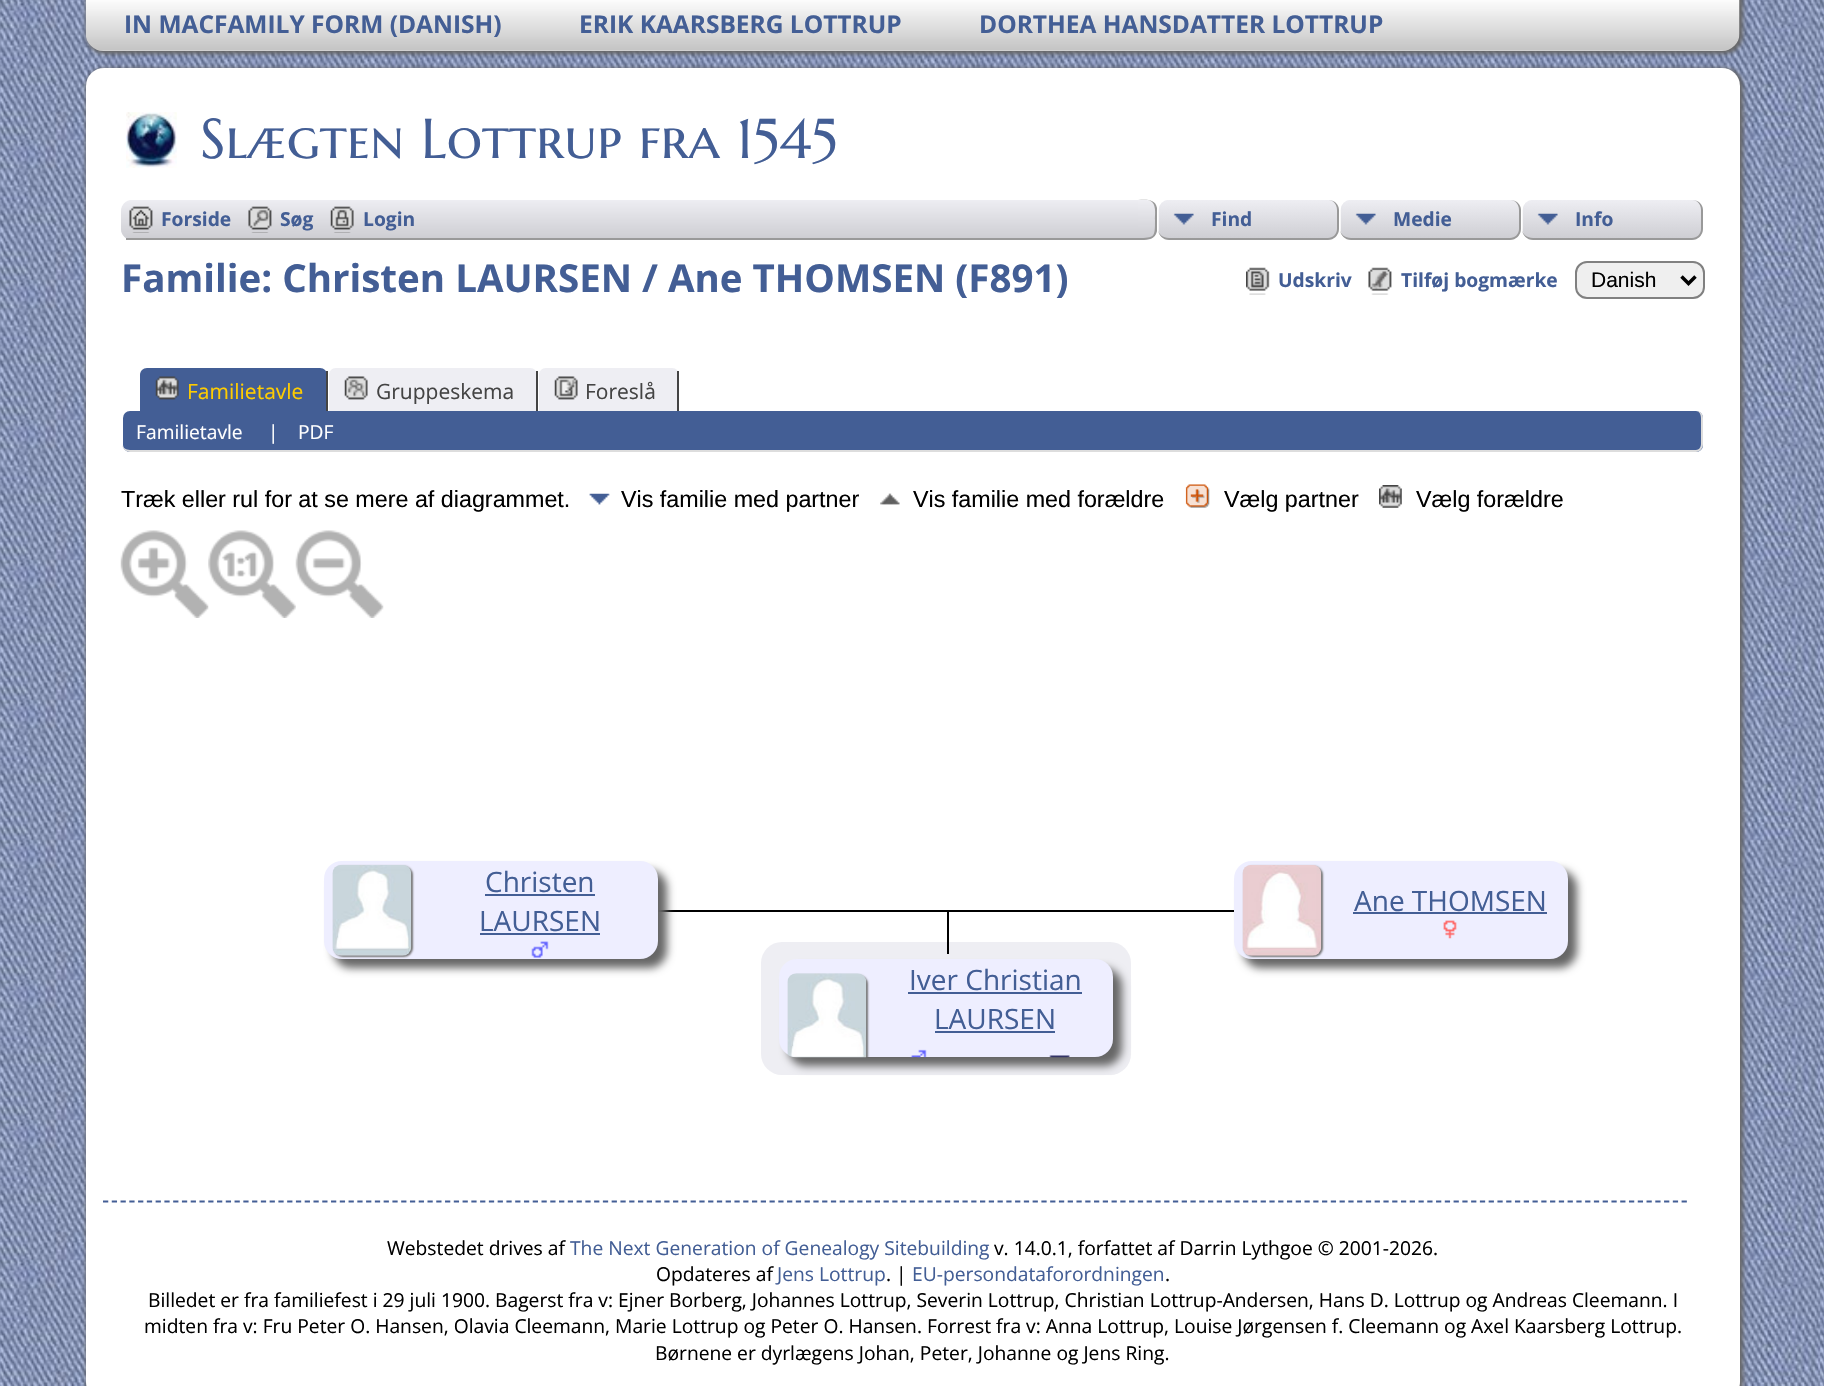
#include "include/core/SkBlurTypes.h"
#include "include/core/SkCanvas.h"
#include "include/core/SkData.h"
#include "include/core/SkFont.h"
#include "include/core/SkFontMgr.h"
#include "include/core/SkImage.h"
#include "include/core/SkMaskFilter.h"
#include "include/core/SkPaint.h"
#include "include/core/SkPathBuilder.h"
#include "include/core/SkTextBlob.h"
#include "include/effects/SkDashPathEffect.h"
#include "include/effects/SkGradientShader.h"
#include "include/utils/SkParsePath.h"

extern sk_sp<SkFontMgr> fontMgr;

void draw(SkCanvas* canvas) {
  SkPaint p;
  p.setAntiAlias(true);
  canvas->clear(SK_ColorWHITE);
  canvas->drawImageRect(SkImages::DeferredFromEncodedData(SkData::MakeFromFileName("images/1.png")), SkRect::MakeLTRB(0, 0, 1824, 1386), SkSamplingOptions());
  p.setColor(SkColorSetRGB(102, 102, 102));
  p.setMaskFilter(SkMaskFilter::MakeBlur(kNormal_SkBlurStyle, 2));
  canvas->drawRoundRect(SkRect::MakeLTRB(86, -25, 1743, 54), 19, 19, p);
  p.setMaskFilter(nullptr);
  canvas->drawImageRect(SkImages::DeferredFromEncodedData(SkData::MakeFromFileName("images/2.png")), SkRect::MakeLTRB(85, 0, 1740, 51), SkSamplingOptions());
  p.setMaskFilter(SkMaskFilter::MakeBlur(kNormal_SkBlurStyle, 2));
  canvas->drawRoundRect(SkRect::MakeLTRB(86, 68, 1743, 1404), 19, 19, p);
  p.setMaskFilter(nullptr);
  p.setColor(SK_ColorWHITE);
  canvas->drawRoundRect(SkRect::MakeLTRB(86, 68, 1740, 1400), 18, 18, p);
  canvas->drawImageRect(SkImages::DeferredFromEncodedData(SkData::MakeFromFileName("images/3.png")), SkRect::MakeLTRB(126, 112, 177, 168), SkSamplingOptions());
  p.setColor(SkColorSetRGB(238, 238, 243));
  canvas->drawRoundRect(SkRect::MakeLTRB(121, 200, 1705, 240), 11, 11, p);
  canvas->save();
  canvas->clipPath(SkPathBuilder().moveTo(132, 200).lineTo(1694, 200).cubicTo(1700, 200, 1705, 205, 1705, 211).lineTo(1705, 229).cubicTo(1705, 235, 1700, 240, 1694, 240).lineTo(132, 240).cubicTo(126, 240, 121, 235, 121, 229).lineTo(121, 211).cubicTo(121, 205, 126, 200, 132, 200).close().detach(), true);
  {
    const SkColor colors[] = {SkColorSetRGB(238, 238, 243), SkColorSetRGB(206, 206, 211)};
    const float stops[] = {0, 1};
    const SkPoint ends[] = {{913, 199}, {913, 238}};
    p.setShader(SkGradientShader::MakeLinear(ends, colors, stops, 2, SkTileMode::kClamp));
    p.setAlpha(255);
  }
  canvas->drawPath(SkPathBuilder().moveTo(132, 200).lineTo(1694, 200).cubicTo(1700, 200, 1705, 205, 1705, 211).lineTo(1705, 238).lineTo(121, 238).lineTo(121, 211).cubicTo(121, 205, 126, 200, 132, 200).close().detach(), p);
  canvas->restore();
  p.setShader(nullptr);
  p.setColor(SkColorSetRGB(153, 153, 153));
  canvas->drawRect(SkRect::MakeLTRB(126, 238, 1138, 240), p);
  canvas->drawImageRect(SkImages::DeferredFromEncodedData(SkData::MakeFromFileName("images/4.png")), SkRect::MakeLTRB(129, 206, 153, 233), SkSamplingOptions());
  canvas->drawImageRect(SkImages::DeferredFromEncodedData(SkData::MakeFromFileName("images/5.png")), SkRect::MakeLTRB(248, 206, 272, 233), SkSamplingOptions());
  canvas->drawImageRect(SkImages::DeferredFromEncodedData(SkData::MakeFromFileName("images/6.png")), SkRect::MakeLTRB(330, 206, 354, 233), SkSamplingOptions());
  p.setColor(SK_ColorWHITE);
  canvas->drawRect(SkRect::MakeLTRB(1146, 200, 1705, 240), p);
  canvas->save();
  canvas->clipPath(SkPathBuilder().moveTo(1138, 200).lineTo(1146, 200).cubicTo(1152, 200, 1157, 205, 1157, 211).lineTo(1157, 229).cubicTo(1157, 235, 1152, 240, 1146, 240).lineTo(1138, 240).close().detach(), true);
  {
    const SkColor colors[] = {SkColorSetRGB(238, 238, 243), SkColorSetRGB(206, 206, 211)};
    const float stops[] = {0, 1};
    const SkPoint ends[] = {{1146, 200}, {1146, 238}};
    p.setShader(SkGradientShader::MakeLinear(ends, colors, stops, 2, SkTileMode::kClamp));
    p.setAlpha(255);
  }
  canvas->drawRect(SkRect::MakeLTRB(1138, 200, 1157, 238), p);
  {
    const SkColor colors[] = {SkColorSetRGB(238, 238, 243), SkColorSetRGB(206, 206, 211)};
    const float stops[] = {0, 1};
    const SkPoint ends[] = {{1146, 238}, {1146, 277}};
    p.setShader(SkGradientShader::MakeLinear(ends, colors, stops, 2, SkTileMode::kClamp));
    p.setAlpha(255);
  }
  canvas->drawRect(SkRect::MakeLTRB(1138, 238, 1157, 240), p);
  canvas->restore();
  p.setShader(nullptr);
  p.setColor(SkColorSetRGB(153, 153, 153));
  canvas->drawPath(SkPathBuilder(SkPathFillType::kEvenOdd).moveTo(1138, 200).cubicTo(1145, 200, 1155, 198, 1157, 208).lineTo(1157, 231).cubicTo(1155, 241, 1145, 240, 1138, 240).close().moveTo(1138, 200).lineTo(1148, 200).cubicTo(1157, 202, 1155, 213, 1155, 220).cubicTo(1155, 237, 1155, 238, 1138, 238).close().detach(), p);
  canvas->drawImageRect(SkImages::DeferredFromEncodedData(SkData::MakeFromFileName("images/7.png")), SkRect::MakeLTRB(1158, 200, 1337, 239), SkSamplingOptions());
  canvas->drawPath(SkPathBuilder(SkPathFillType::kEvenOdd).moveTo(1169, 200).lineTo(1328, 200).cubicTo(1334, 200, 1339, 204, 1339, 210).lineTo(1339, 229).cubicTo(1339, 235, 1334, 240, 1328, 240).lineTo(1169, 240).cubicTo(1163, 240, 1158, 235, 1158, 229).lineTo(1158, 210).cubicTo(1158, 204, 1163, 200, 1169, 200).close().moveTo(1169, 200).lineTo(1328, 200).cubicTo(1333, 200, 1337, 204, 1337, 210).lineTo(1337, 229).cubicTo(1337, 234, 1333, 238, 1328, 238).lineTo(1169, 238).cubicTo(1163, 238, 1158, 234, 1158, 229).lineTo(1158, 210).cubicTo(1158, 204, 1163, 200, 1169, 200).close().detach(), p);
  canvas->drawImageRect(SkImages::DeferredFromEncodedData(SkData::MakeFromFileName("images/7.png")), SkRect::MakeLTRB(1340, 200, 1519, 239), SkSamplingOptions());
  canvas->drawPath(SkPathBuilder(SkPathFillType::kEvenOdd).moveTo(1351, 200).lineTo(1510, 200).cubicTo(1516, 200, 1521, 204, 1521, 210).lineTo(1521, 229).cubicTo(1521, 235, 1516, 240, 1510, 240).lineTo(1351, 240).cubicTo(1345, 240, 1340, 235, 1340, 229).lineTo(1340, 210).cubicTo(1340, 204, 1345, 200, 1351, 200).close().moveTo(1351, 200).lineTo(1510, 200).cubicTo(1515, 200, 1519, 204, 1519, 210).lineTo(1519, 229).cubicTo(1519, 234, 1515, 238, 1510, 238).lineTo(1351, 238).cubicTo(1345, 238, 1340, 234, 1340, 229).lineTo(1340, 210).cubicTo(1340, 204, 1345, 200, 1351, 200).close().detach(), p);
  canvas->drawImageRect(SkImages::DeferredFromEncodedData(SkData::MakeFromFileName("images/8.png")), SkRect::MakeLTRB(1522, 200, 1701, 239), SkSamplingOptions());
  canvas->drawPath(SkPathBuilder(SkPathFillType::kEvenOdd).moveTo(1533, 200).lineTo(1692, 200).cubicTo(1698, 200, 1703, 204, 1703, 210).lineTo(1703, 229).cubicTo(1703, 235, 1698, 240, 1692, 240).lineTo(1533, 240).cubicTo(1527, 240, 1522, 235, 1522, 229).lineTo(1522, 210).cubicTo(1522, 204, 1527, 200, 1533, 200).close().moveTo(1533, 200).lineTo(1692, 200).cubicTo(1697, 200, 1701, 204, 1701, 210).lineTo(1701, 229).cubicTo(1701, 234, 1697, 238, 1692, 238).lineTo(1533, 238).cubicTo(1527, 238, 1522, 234, 1522, 229).lineTo(1522, 210).cubicTo(1522, 204, 1527, 200, 1533, 200).close().detach(), p);
  canvas->drawImageRect(SkImages::DeferredFromEncodedData(SkData::MakeFromFileName("images/9.png")), SkRect::MakeLTRB(1246, 267, 1270, 295), SkSamplingOptions());
  canvas->drawImageRect(SkImages::DeferredFromEncodedData(SkData::MakeFromFileName("images/10.png")), SkRect::MakeLTRB(1368, 267, 1392, 295), SkSamplingOptions());
  p.setColor(SkColorSetRGB(239, 239, 239));
  canvas->drawRoundRect(SkRect::MakeLTRB(1576, 262, 1704, 298), 11, 11, p);
  p.setStyle(SkPaint::kStroke_Style);
  p.setStrokeWidth(2);
  p.setColor(SkColorSetRGB(128, 128, 128));
  canvas->drawRoundRect(SkRect::MakeLTRB(1576, 262, 1704, 298), 11, 11, p);
  p.setStrokeWidth(3.5f);
  p.setColor(SK_ColorBLACK);
  canvas->drawPath(SkPathBuilder().moveTo(1681.5f, 276.5f).lineTo(1688.5f, 283.5f).lineTo(1695.5f, 276.5f).detach(), p);
  p.setStyle(SkPaint::kFill_Style);
  p.setColor(SkColorSetRGB(67, 94, 149));
  canvas->drawPath(SkPathBuilder().moveTo(147, 368).lineTo(320, 368).cubicTo(324, 368, 327, 371, 327, 375).lineTo(327, 411).lineTo(140, 411).lineTo(140, 375).cubicTo(140, 371, 143, 368, 147, 368).close().detach(), p);
  p.setColor(SkColorSetRGB(68, 68, 68));
  canvas->drawRect(SkRect::MakeLTRB(326, 371, 328, 411), p);
  canvas->drawImageRect(SkImages::DeferredFromEncodedData(SkData::MakeFromFileName("images/11.png")), SkRect::MakeLTRB(155, 376, 179, 400), SkSamplingOptions());
  p.setColor(SkColorSetRGB(238, 238, 243));
  canvas->drawPath(SkPathBuilder().moveTo(336, 368).lineTo(530, 368).cubicTo(534, 368, 537, 371, 537, 375).lineTo(537, 411).lineTo(329, 411).lineTo(329, 375).cubicTo(329, 371, 332, 368, 336, 368).close().detach(), p);
  p.setColor(SkColorSetRGB(68, 68, 68));
  canvas->drawRect(SkRect::MakeLTRB(536, 371, 538, 411), p);
  canvas->drawImageRect(SkImages::DeferredFromEncodedData(SkData::MakeFromFileName("images/12.png")), SkRect::MakeLTRB(344, 376, 368, 400), SkSamplingOptions());
  p.setColor(SkColorSetRGB(238, 238, 243));
  canvas->drawPath(SkPathBuilder().moveTo(546, 368).lineTo(672, 368).cubicTo(676, 368, 679, 371, 679, 375).lineTo(679, 411).lineTo(539, 411).lineTo(539, 375).cubicTo(539, 371, 542, 368, 546, 368).close().detach(), p);
  p.setColor(SkColorSetRGB(68, 68, 68));
  canvas->drawRect(SkRect::MakeLTRB(677, 371, 679, 411), p);
  canvas->drawImageRect(SkImages::DeferredFromEncodedData(SkData::MakeFromFileName("images/13.png")), SkRect::MakeLTRB(554, 376, 578, 400), SkSamplingOptions());
  p.setColor(SkColorSetRGB(67, 94, 149));
  canvas->drawRoundRect(SkRect::MakeLTRB(123, 411, 1703, 452), 7, 7, p);
  p.setColor(SkColorSetRGB(221, 221, 221));
  canvas->drawPath(SkPathBuilder(SkPathFillType::kEvenOdd).moveTo(130, 411).lineTo(1696, 411).cubicTo(1700, 411, 1703, 414, 1703, 418).lineTo(1703, 444).cubicTo(1703, 448, 1700, 452, 1696, 452).lineTo(130, 452).cubicTo(126, 452, 122, 448, 122, 444).lineTo(122, 418).cubicTo(122, 414, 126, 411, 130, 411).close().moveTo(130, 411).lineTo(1696, 411).cubicTo(1699, 411, 1701, 414, 1701, 418).lineTo(1701, 444).cubicTo(1701, 447, 1699, 450, 1696, 450).lineTo(130, 450).cubicTo(126, 450, 122, 447, 122, 444).lineTo(122, 418).cubicTo(122, 414, 126, 411, 130, 411).close().detach(), p);
  canvas->drawImageRect(SkImages::DeferredFromEncodedData(SkData::MakeFromFileName("images/14.png")), SkRect::MakeLTRB(589, 493, 610, 505), SkSamplingOptions());
  canvas->drawImageRect(SkImages::DeferredFromEncodedData(SkData::MakeFromFileName("images/15.png")), SkRect::MakeLTRB(880, 493, 900, 505), SkSamplingOptions());
  canvas->drawImageRect(SkImages::DeferredFromEncodedData(SkData::MakeFromFileName("images/16.png")), SkRect::MakeLTRB(1185, 484, 1210, 508), SkSamplingOptions());
  canvas->drawImageRect(SkImages::DeferredFromEncodedData(SkData::MakeFromFileName("images/17.png")), SkRect::MakeLTRB(1379, 485, 1402, 508), SkSamplingOptions());
  canvas->drawImageRect(SkImages::DeferredFromEncodedData(SkData::MakeFromFileName("images/18.png")), SkRect::MakeLTRB(120, 530, 209, 618), SkSamplingOptions());
  canvas->drawImageRect(SkImages::DeferredFromEncodedData(SkData::MakeFromFileName("images/19.png")), SkRect::MakeLTRB(208, 530, 296, 618), SkSamplingOptions());
  canvas->drawImageRect(SkImages::DeferredFromEncodedData(SkData::MakeFromFileName("images/20.png")), SkRect::MakeLTRB(295, 530, 384, 618), SkSamplingOptions());
  p.setColor(SK_ColorBLACK);
  canvas->drawRect(SkRect::MakeLTRB(658, 910, 1236, 912), p);
  p.setColor(SkColorSetRGB(102, 102, 102));
  p.setMaskFilter(SkMaskFilter::MakeBlur(kNormal_SkBlurStyle, 4.5f));
  canvas->drawRoundRect(SkRect::MakeLTRB(333, 870, 667, 968), 18, 18, p);
  p.setMaskFilter(nullptr);
  p.setColor(SkColorSetRGB(238, 238, 255));
  canvas->drawRoundRect(SkRect::MakeLTRB(324, 861, 658, 959), 18, 18, p);
  p.setColor(SkColorSetRGB(119, 119, 119));
  p.setMaskFilter(SkMaskFilter::MakeBlur(kNormal_SkBlurStyle, 1));
  canvas->drawRoundRect(SkRect::MakeLTRB(334, 866, 413, 957), 9, 9, p);
  p.setMaskFilter(nullptr);
  canvas->drawImageRect(SkImages::DeferredFromEncodedData(SkData::MakeFromFileName("images/21.png")), SkRect::MakeLTRB(332, 865, 412, 956), SkSamplingOptions());
  p.setColor(SkColorSetRGB(67, 94, 149));
  canvas->drawRect(SkRect::MakeLTRB(485, 894, 595, 896), p);
  canvas->drawRect(SkRect::MakeLTRB(480, 933, 600, 935), p);
  canvas->drawImageRect(SkImages::DeferredFromEncodedData(SkData::MakeFromFileName("images/22.png")), SkRect::MakeLTRB(531, 941, 549, 958), SkSamplingOptions());
  p.setColor(SkColorSetRGB(102, 102, 102));
  p.setMaskFilter(SkMaskFilter::MakeBlur(kNormal_SkBlurStyle, 4.5f));
  canvas->drawRoundRect(SkRect::MakeLTRB(1243, 870, 1577, 968), 18, 18, p);
  p.setMaskFilter(nullptr);
  p.setColor(SkColorSetRGB(238, 238, 255));
  canvas->drawRoundRect(SkRect::MakeLTRB(1234, 861, 1568, 959), 18, 18, p);
  p.setColor(SkColorSetRGB(119, 119, 119));
  p.setMaskFilter(SkMaskFilter::MakeBlur(kNormal_SkBlurStyle, 1));
  canvas->drawRoundRect(SkRect::MakeLTRB(1244, 866, 1323, 957), 9, 9, p);
  p.setMaskFilter(nullptr);
  canvas->drawImageRect(SkImages::DeferredFromEncodedData(SkData::MakeFromFileName("images/23.png")), SkRect::MakeLTRB(1242, 865, 1322, 956), SkSamplingOptions());
  p.setColor(SkColorSetRGB(67, 94, 149));
  canvas->drawRect(SkRect::MakeLTRB(1353, 912, 1547, 914), p);
  canvas->drawImageRect(SkImages::DeferredFromEncodedData(SkData::MakeFromFileName("images/24.png")), SkRect::MakeLTRB(1443, 920, 1457, 939), SkSamplingOptions());
  p.setColor(SkColorSetRGB(238, 238, 243));
  canvas->drawRoundRect(SkRect::MakeLTRB(761, 942, 1131, 1075), 21, 21, p);
  p.setColor(SK_ColorBLACK);
  canvas->drawRect(SkRect::MakeLTRB(947, 910, 949, 954), p);
  p.setColor(SkColorSetRGB(102, 102, 102));
  p.setMaskFilter(SkMaskFilter::MakeBlur(kNormal_SkBlurStyle, 4.5f));
  canvas->drawRoundRect(SkRect::MakeLTRB(788, 968, 1122, 1066), 18, 18, p);
  p.setMaskFilter(nullptr);
  p.setColor(SkColorSetRGB(238, 238, 255));
  canvas->drawRoundRect(SkRect::MakeLTRB(779, 959, 1113, 1057), 18, 18, p);
  canvas->save();
  canvas->clipPath(SkPathBuilder().moveTo(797, 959).lineTo(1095, 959).cubicTo(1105, 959, 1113, 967, 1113, 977).lineTo(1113, 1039).cubicTo(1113, 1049, 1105, 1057, 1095, 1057).lineTo(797, 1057).cubicTo(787, 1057, 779, 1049, 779, 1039).lineTo(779, 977).cubicTo(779, 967, 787, 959, 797, 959).close().detach(), true);
  p.setColor(SkColorSetRGB(119, 119, 119));
  p.setMaskFilter(SkMaskFilter::MakeBlur(kNormal_SkBlurStyle, 1));
  canvas->drawRoundRect(SkRect::MakeLTRB(789, 975, 868, 1066), 9, 9, p);
  p.setMaskFilter(nullptr);
  canvas->restore();
  canvas->drawImageRect(SkImages::DeferredFromEncodedData(SkData::MakeFromFileName("images/25.png")), SkRect::MakeLTRB(787, 973, 867, 1058), SkSamplingOptions());
  p.setColor(SkColorSetRGB(67, 94, 149));
  canvas->drawRect(SkRect::MakeLTRB(908, 992, 1082, 994), p);
  canvas->drawRect(SkRect::MakeLTRB(935, 1031, 1055, 1033), p);
  canvas->drawImageRect(SkImages::DeferredFromEncodedData(SkData::MakeFromFileName("images/26.png")), SkRect::MakeLTRB(909, 1049, 927, 1058), SkSamplingOptions());
  canvas->drawImageRect(SkImages::DeferredFromEncodedData(SkData::MakeFromFileName("images/27.png")), SkRect::MakeLTRB(1049, 1055, 1070, 1058), SkSamplingOptions());
  p.setStyle(SkPaint::kStroke_Style);
  p.setStrokeWidth(1.8f);
  p.setPathEffect(SkDashPathEffect::Make({{5.25f, 3.52f}}, 0));
  canvas->drawPath(SkPathBuilder().moveTo(103, 1201.5f).lineTo(1687, 1201.5f).detach(), p);
  p.setPathEffect(nullptr);
  SkFont font1(fontMgr->matchFamilyStyle("Open Sans", SkFontStyle::Bold()), 24.5f);
  font1.setSubpixel(true);
  p.setStyle(SkPaint::kFill_Style);
  canvas->drawString("IN MACFAMILY FORM (DANISH)", 124, 33, font1, p);
  canvas->drawString("ERIK KAARSBERG LOTTRUP", 579, 33, font1, p);
  canvas->drawString("DORTHEA HANSDATTER LOTTRUP", 979, 33, font1, p);
  SkFont font2(fontMgr->matchFamilyStyle("Marcellus SC", SkFontStyle::Normal()), 56);
  font2.setSubpixel(true);
  canvas->drawString("Slægten Lottrup fra 1545", 200, 158, font2, p);
  SkFont font3(fontMgr->matchFamilyStyle("Open Sans", SkFontStyle::Bold()), 19.25f);
  font3.setSubpixel(true);
  canvas->drawString("Forside", 161, 226, font3, p);
  canvas->drawString("Søg", 280, 226, font3, p);
  canvas->drawString("Login", 363, 226, font3, p);
  canvas->drawString("Find", 1211, 226, font3, p);
  canvas->drawString("Medie", 1393, 226, font3, p);
  canvas->drawString("Info", 1575, 226, font3, p);
  SkFont font4(fontMgr->matchFamilyStyle("Open Sans", SkFontStyle::Bold()), 38.5f);
  font4.setSubpixel(true);
  canvas->drawString("Familie: Christen LAURSEN / Ane THOMSEN (F891)", 121, 292, font4, p);
  canvas->drawString("Udskriv", 1278, 287, font3, p);
  canvas->drawString("Tilføj bogmærke", 1401, 287, font3, p);
  SkFont font5(fontMgr->matchFamilyStyle("Liberation Sans", SkFontStyle::Normal()), 21);
  font5.setSubpixel(true);
  p.setColor(SK_ColorBLACK);
  canvas->drawString("Danish", 1591, 287, font5, p);
  SkFont font6(fontMgr->matchFamilyStyle("Open Sans", SkFontStyle::Normal()), 21);
  font6.setSubpixel(true);
  p.setColor(SkColorSetRGB(255, 204, 0));
  canvas->drawString("Familietavle", 187, 399, font6, p);
  p.setColor(SkColorSetRGB(68, 68, 68));
  canvas->drawString("Gruppeskema", 376, 399, font6, p);
  canvas->drawString("Foreslå", 585, 399, font6, p);
  SkFont font7(fontMgr->matchFamilyStyle("Open Sans", SkFontStyle::Normal()), 19.25f);
  font7.setSubpixel(true);
  p.setColor(SK_ColorWHITE);
  canvas->drawString("Familietavle", 136, 439, font7, p);
  canvas->drawString("|", 268, 439, font7, p);
  canvas->drawString("PDF", 298, 439, font7, p);
  SkFont font8(fontMgr->matchFamilyStyle("Liberation Sans", SkFontStyle::Normal()), 23.3f);
  font8.setSubpixel(true);
  p.setColor(SK_ColorBLACK);
  canvas->drawString("Træk eller rul for at se mere af diagrammet.", 121, 507, font8, p);
  canvas->drawString("Vis familie med partner", 621, 507, font8, p);
  canvas->drawString("Vis familie med forældre", 913, 507, font8, p);
  canvas->drawString("Vælg partner", 1224, 507, font8, p);
  canvas->drawString("Vælg forældre", 1416, 507, font8, p);
  SkFont font9(fontMgr->matchFamilyStyle("Open Sans", SkFontStyle::Normal()), 28);
  font9.setSubpixel(true);
  p.setColor(SkColorSetRGB(67, 94, 149));
  canvas->drawString("Christen", 485, 892, font9, p);
  canvas->drawString("LAURSEN", 479, 931, font9, p);
  canvas->drawString("Ane THOMSEN", 1354, 911, font9, p);
  canvas->drawString("Iver Christian", 909, 990, font9, p);
  canvas->drawString("LAURSEN", 934, 1029, font9, p);
  p.setColor(SK_ColorBLACK);
  canvas->drawString("Webstedet drives af", 387, 1255, font7, p);
  p.setColor(SkColorSetRGB(67, 94, 149));
  canvas->drawString("The Next Generation of Genealogy Sitebuilding", 570, 1255, font7, p);
  p.setColor(SK_ColorBLACK);
  canvas->drawString("v. 14.0.1, forfattet af Darrin Lythgoe © 2001-2026.", 994, 1255, font7, p);
  canvas->drawString("Opdateres af", 656, 1281, font7, p);
  p.setColor(SkColorSetRGB(67, 94, 149));
  canvas->drawString("Jens Lottrup", 777, 1281, font7, p);
  p.setColor(SK_ColorBLACK);
  canvas->drawString(". |", 886, 1281, font7, p);
  p.setColor(SkColorSetRGB(67, 94, 149));
  canvas->drawString("EU-persondataforordningen", 912, 1281, font7, p);
  p.setColor(SK_ColorBLACK);
  canvas->drawString(".", 1165, 1281, font7, p);
  canvas->drawString("Billedet er fra familiefest i 29 juli 1900. Bagerst fra v: Ejner Borberg, Johannes Lottrup, Severin Lottrup, Christian Lottrup-Andersen, Hans D. Lottrup og Andreas Cleemann. I", 148, 1307, font7, p);
  canvas->drawString("midten fra v: Fru Peter O. Hansen, Olavia Cleemann, Marie Lottrup og Peter O. Hansen. Forrest fra v: Anna Lottrup, Louise Jørgensen f. Cleemann og Axel Kaarsberg Lottrup.", 144, 1333, font7, p);
  canvas->drawString("Børnene er dyrlægens Johan, Peter, Johanne og Jens Ring.", 655, 1360, font7, p);
}
